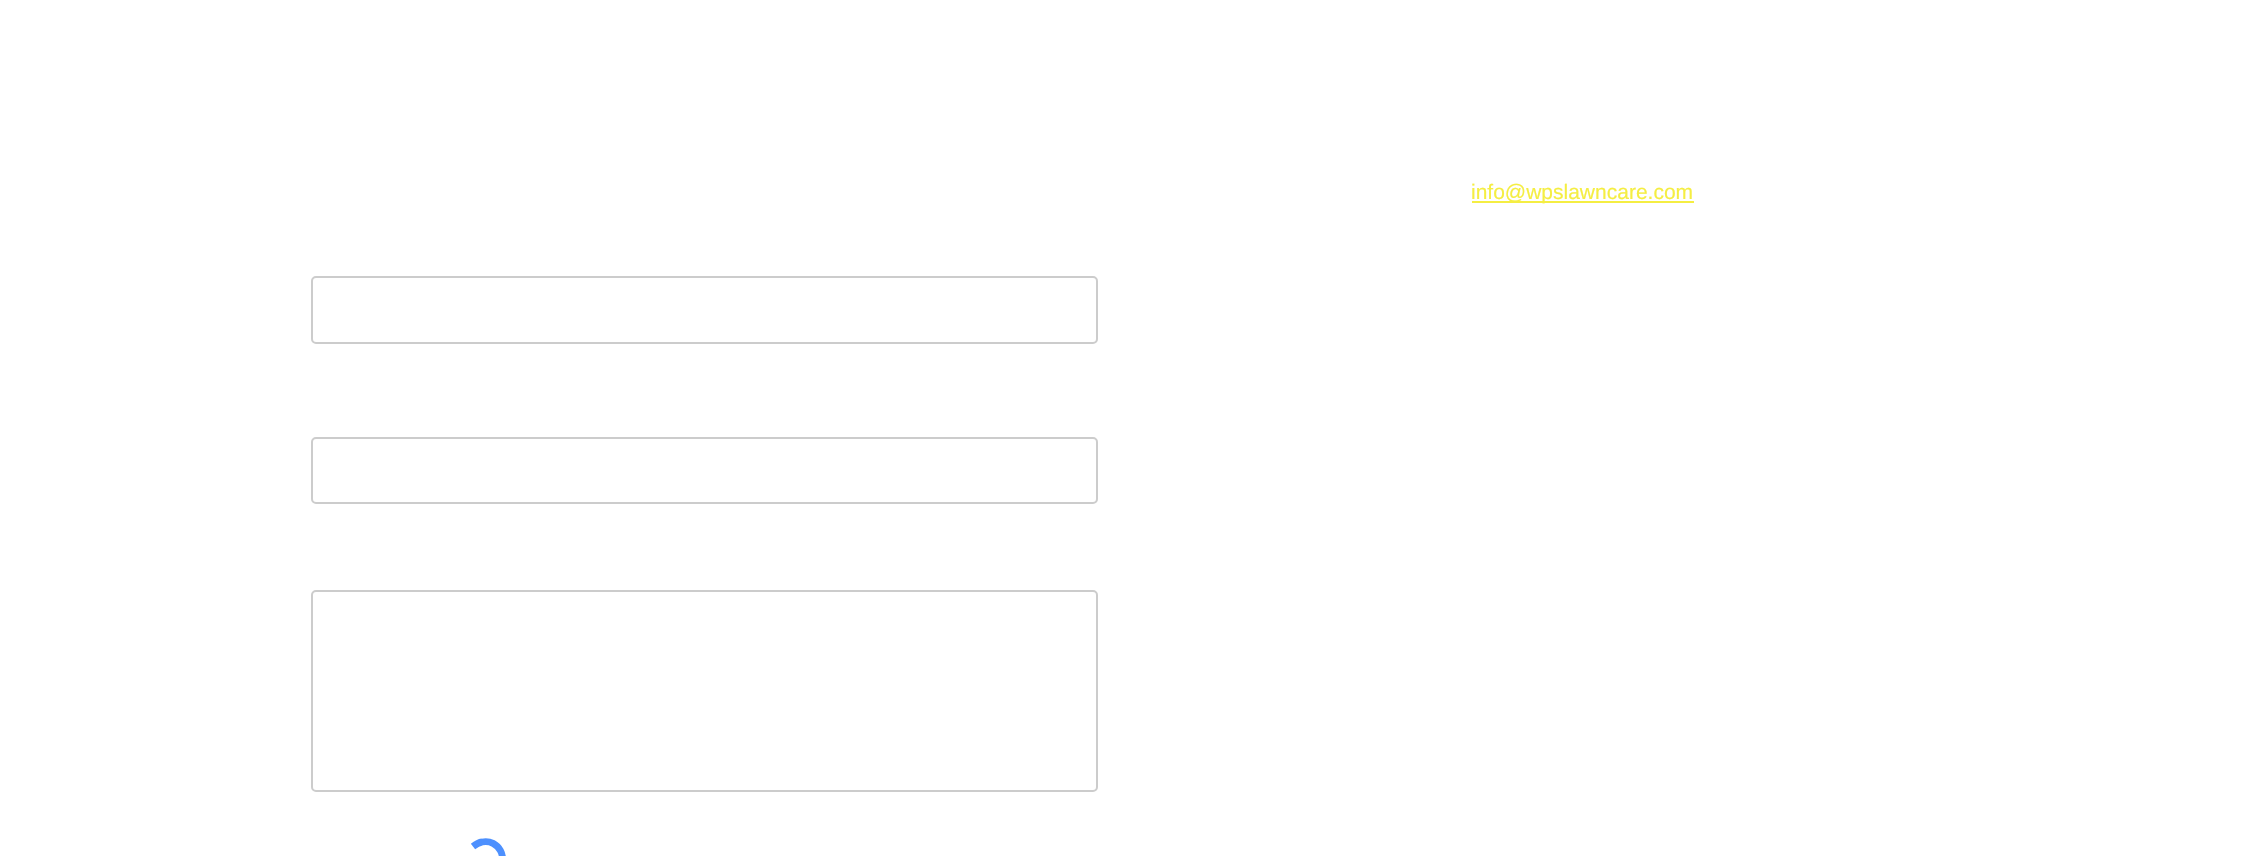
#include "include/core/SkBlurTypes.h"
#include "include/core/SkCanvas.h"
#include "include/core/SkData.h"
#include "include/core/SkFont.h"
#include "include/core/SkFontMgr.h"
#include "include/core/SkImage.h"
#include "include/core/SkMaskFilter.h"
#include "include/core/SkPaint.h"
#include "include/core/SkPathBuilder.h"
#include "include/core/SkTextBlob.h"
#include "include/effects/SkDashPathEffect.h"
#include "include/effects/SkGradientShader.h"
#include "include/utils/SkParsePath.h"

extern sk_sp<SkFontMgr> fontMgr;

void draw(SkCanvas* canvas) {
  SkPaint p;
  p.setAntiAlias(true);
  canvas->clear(SK_ColorWHITE);
  p.setColor(SkColorSetRGB(245, 238, 66));
  canvas->drawRect(SkRect::MakeLTRB(1472, 201, 1694, 203), p);
  p.setStyle(SkPaint::kStroke_Style);
  p.setStrokeWidth(2);
  p.setColor(SkColorSetRGB(204, 204, 204));
  canvas->drawRoundRect(SkRect::MakeLTRB(312, 277, 1097, 343), 4, 4, p);
  canvas->drawRoundRect(SkRect::MakeLTRB(312, 438, 1097, 503), 4, 4, p);
  canvas->drawRoundRect(SkRect::MakeLTRB(312, 591, 1097, 791), 4, 4, p);
  p.setStrokeWidth(6.9f);
  p.setColor(SkColorSetRGB(77, 144, 254));
  canvas->drawPath(SkPathBuilder().moveTo(473, 846.5f).cubicTo(475.5f, 844.5f, 478.5f, 842.5f, 482, 842).cubicTo(498.5f, 838.5f, 509.5f, 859, 497.5f, 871).detach(), p);
  SkFont font1(fontMgr->matchFamilyStyle("Liberation Sans", SkFontStyle::Normal()), 21);
  font1.setSubpixel(true);
  p.setStyle(SkPaint::kFill_Style);
  p.setColor(SkColorSetRGB(245, 238, 66));
  canvas->drawString("info@wpslawncare.com", 1471, 199, font1, p);
}
